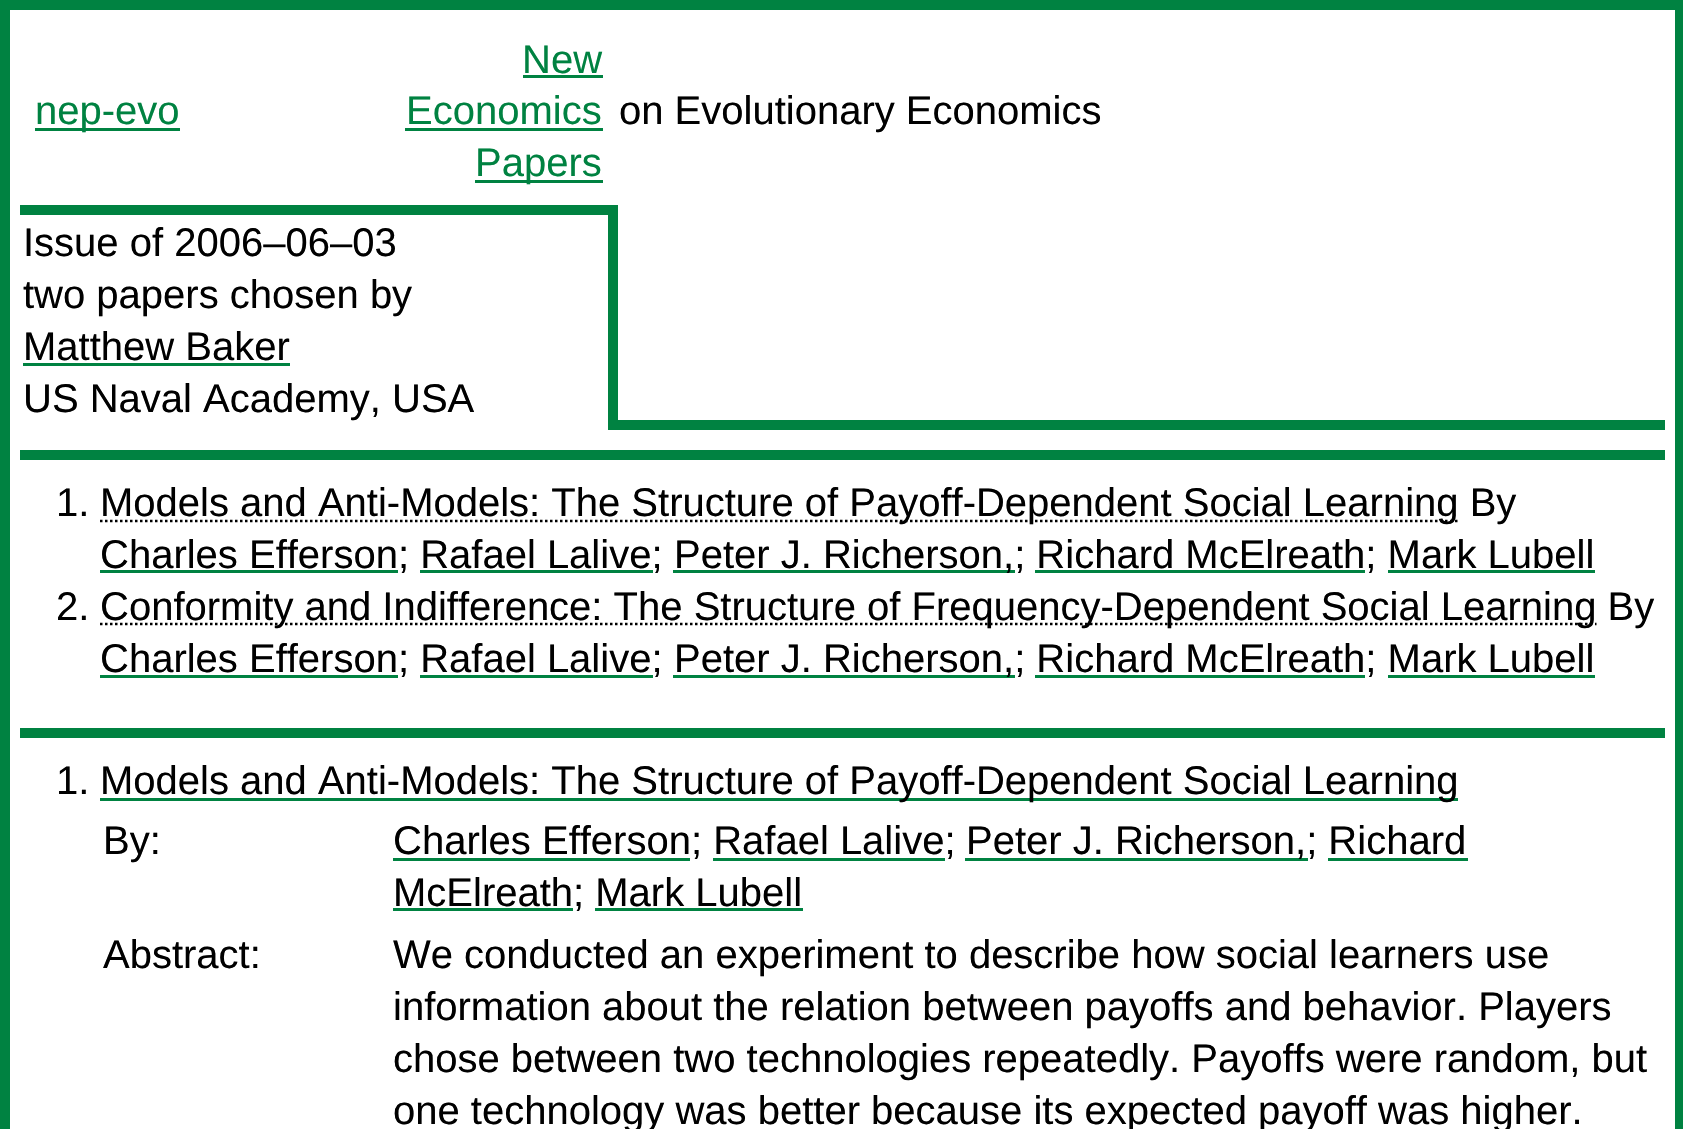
#include "include/core/SkBlurTypes.h"
#include "include/core/SkCanvas.h"
#include "include/core/SkData.h"
#include "include/core/SkFont.h"
#include "include/core/SkFontMgr.h"
#include "include/core/SkImage.h"
#include "include/core/SkMaskFilter.h"
#include "include/core/SkPaint.h"
#include "include/core/SkPathBuilder.h"
#include "include/core/SkTextBlob.h"
#include "include/effects/SkDashPathEffect.h"
#include "include/effects/SkGradientShader.h"
#include "include/utils/SkParsePath.h"

extern sk_sp<SkFontMgr> fontMgr;

void draw(SkCanvas* canvas) {
  SkPaint p;
  p.setAntiAlias(true);
  canvas->clear(SK_ColorWHITE);
  p.setStyle(SkPaint::kStroke_Style);
  p.setStrokeWidth(10);
  p.setColor(SkColorSetRGB(0, 130, 65));
  canvas->drawRect(SkRect::MakeLTRB(5, 5, 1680, 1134), p);
  p.setStyle(SkPaint::kFill_Style);
  canvas->drawRect(SkRect::MakeLTRB(35, 128, 180, 131), p);
  canvas->drawRect(SkRect::MakeLTRB(523, 75, 603, 78), p);
  canvas->drawRect(SkRect::MakeLTRB(405, 128, 603, 131), p);
  canvas->drawRect(SkRect::MakeLTRB(475, 180, 603, 183), p);
  canvas->drawRect(SkRect::MakeLTRB(20, 205, 608, 215), p);
  canvas->drawRect(SkRect::MakeLTRB(608, 205, 618, 430), p);
  canvas->drawRect(SkRect::MakeLTRB(23, 363, 290, 366), p);
  canvas->drawRect(SkRect::MakeLTRB(618, 420, 1665, 430), p);
  canvas->drawRect(SkRect::MakeLTRB(20, 450, 1665, 460), p);
  p.setStyle(SkPaint::kStroke_Style);
  p.setStrokeWidth(2.5f);
  p.setColor(SK_ColorBLACK);
  p.setPathEffect(SkDashPathEffect::Make({{2.5f, 2.5f}}, 0));
  canvas->drawPath(SkPathBuilder().moveTo(100, 521).lineTo(1458.5f, 521).detach(), p);
  p.setPathEffect(nullptr);
  p.setStyle(SkPaint::kFill_Style);
  p.setColor(SkColorSetRGB(0, 130, 65));
  canvas->drawRect(SkRect::MakeLTRB(100, 570, 398, 573), p);
  canvas->drawRect(SkRect::MakeLTRB(673, 570, 1015, 573), p);
  p.setStyle(SkPaint::kStroke_Style);
  p.setColor(SK_ColorBLACK);
  p.setPathEffect(SkDashPathEffect::Make({{2.5f, 2.5f}}, 0));
  canvas->drawPath(SkPathBuilder().moveTo(100, 624).lineTo(1596.5f, 624).detach(), p);
  p.setPathEffect(nullptr);
  p.setStyle(SkPaint::kFill_Style);
  p.setColor(SkColorSetRGB(0, 130, 65));
  canvas->drawRect(SkRect::MakeLTRB(100, 675, 398, 678), p);
  canvas->drawRect(SkRect::MakeLTRB(673, 675, 1015, 678), p);
  canvas->drawRect(SkRect::MakeLTRB(20, 728, 1665, 738), p);
  canvas->drawRect(SkRect::MakeLTRB(100, 798, 1458, 801), p);
  canvas->drawRect(SkRect::MakeLTRB(393, 858, 690, 861), p);
  canvas->drawRect(SkRect::MakeLTRB(965, 858, 1308, 861), p);
  canvas->drawRect(SkRect::MakeLTRB(393, 908, 573, 911), p);
  SkFont font1(fontMgr->matchFamilyStyle("Liberation Sans", SkFontStyle::Normal()), 40);
  font1.setSubpixel(true);
  canvas->drawString("nep-evo", 35, 124, font1, p);
  canvas->drawString("New", 522, 73, font1, p);
  canvas->drawString("Economics", 406, 124, font1, p);
  canvas->drawString("Papers", 475, 176, font1, p);
  p.setColor(SK_ColorBLACK);
  canvas->drawString("on Evolutionary Economics", 619, 124, font1, p);
  canvas->drawString("Issue of 2006‒06‒03", 23, 256, font1, p);
  canvas->drawString("two papers chosen by", 23, 308, font1, p);
  canvas->drawString("Matthew Baker", 23, 360, font1, p);
  canvas->drawString("US Naval Academy, USA", 23, 412, font1, p);
  canvas->drawString("1.", 56, 516, font1, p);
  canvas->drawString("Models and Anti-Models: The Structure of Payoff-Dependent Social Learning By", 100, 516, font1, p);
  canvas->drawString("Charles Efferson; Rafael Lalive;", 100, 568, font1, p);
  canvas->drawString("Peter J. Richerson,; Richard McElreath; Mark Lubell", 674, 568, font1, p);
  p.setColor(SkColorSetRGB(0, 130, 65));
  canvas->drawRect(SkRect::MakeLTRB(420, 570, 653, 573), p);
  canvas->drawRect(SkRect::MakeLTRB(1035, 570, 1365, 573), p);
  canvas->drawRect(SkRect::MakeLTRB(1388, 570, 1595, 573), p);
  p.setColor(SK_ColorBLACK);
  canvas->drawString("2.", 56, 620, font1, p);
  canvas->drawString("Conformity and Indifference: The Structure of Frequency-Dependent Social Learning By", 100, 620, font1, p);
  canvas->drawString("Charles Efferson; Rafael Lalive;", 100, 672, font1, p);
  canvas->drawString("Peter J. Richerson,; Richard McElreath; Mark Lubell", 674, 672, font1, p);
  p.setColor(SkColorSetRGB(0, 130, 65));
  canvas->drawRect(SkRect::MakeLTRB(420, 675, 653, 678), p);
  canvas->drawRect(SkRect::MakeLTRB(1035, 675, 1365, 678), p);
  canvas->drawRect(SkRect::MakeLTRB(1388, 675, 1595, 678), p);
  p.setColor(SK_ColorBLACK);
  canvas->drawString("1.", 56, 794, font1, p);
  canvas->drawString("Models and Anti-Models: The Structure of Payoff-Dependent Social Learning", 100, 794, font1, p);
  canvas->drawString("By:", 103, 854, font1, p);
  canvas->drawString("Charles Efferson; Rafael Lalive;", 393, 854, font1, p);
  canvas->drawString("Peter J. Richerson,; Richard", 966, 854, font1, p);
  p.setColor(SkColorSetRGB(0, 130, 65));
  canvas->drawRect(SkRect::MakeLTRB(713, 858, 945, 861), p);
  p.setColor(SK_ColorBLACK);
  canvas->drawString("McElreath; Mark Lubell", 393, 906, font1, p);
  p.setColor(SkColorSetRGB(0, 130, 65));
  canvas->drawRect(SkRect::MakeLTRB(1328, 858, 1468, 861), p);
  canvas->drawRect(SkRect::MakeLTRB(595, 908, 803, 911), p);
  p.setColor(SK_ColorBLACK);
  canvas->drawString("Abstract:", 103, 968, font1, p);
  canvas->drawString("We conducted an experiment to describe how social learners use", 393, 968, font1, p);
  canvas->drawString("information about the relation between payoffs and behavior. Players", 393, 1020, font1, p);
  canvas->drawString("chose between two technologies repeatedly. Payoffs were random, but", 393, 1072, font1, p);
  canvas->drawString("one technology was better because its expected payoff was higher.", 393, 1124, font1, p);
}
